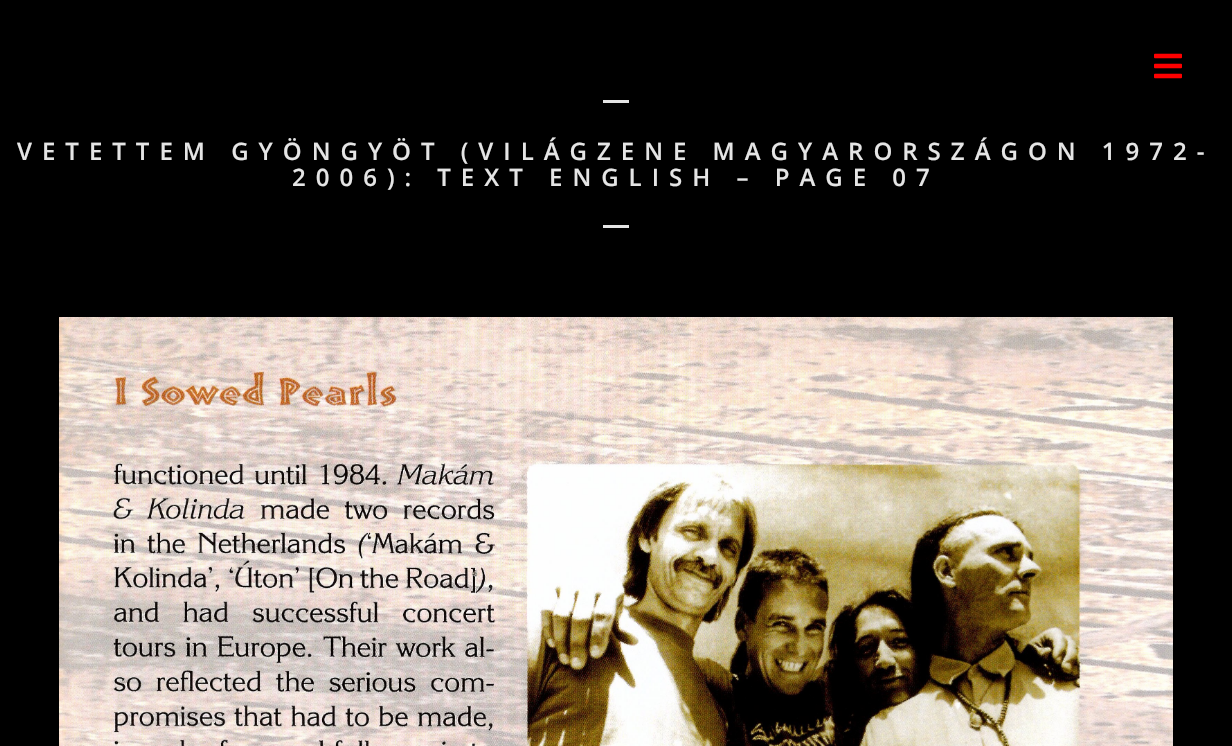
#include "include/core/SkBlurTypes.h"
#include "include/core/SkCanvas.h"
#include "include/core/SkData.h"
#include "include/core/SkFont.h"
#include "include/core/SkFontMgr.h"
#include "include/core/SkImage.h"
#include "include/core/SkMaskFilter.h"
#include "include/core/SkPaint.h"
#include "include/core/SkPathBuilder.h"
#include "include/core/SkTextBlob.h"
#include "include/effects/SkDashPathEffect.h"
#include "include/effects/SkGradientShader.h"
#include "include/utils/SkParsePath.h"

extern sk_sp<SkFontMgr> fontMgr;

void draw(SkCanvas* canvas) {
  SkPaint p;
  p.setAntiAlias(true);
  auto spacedText = [&](const char* s, float x, float y, const SkFont& font, const SkPaint& ink, float letter, float word) {
    std::vector<SkGlyphID> glyphs(font.countText(s, strlen(s), SkTextEncoding::kUTF8));
    std::vector<float> xs(glyphs.size());
    font.textToGlyphs(s, strlen(s), SkTextEncoding::kUTF8, glyphs);
    font.getXPos(glyphs, xs, x);
    float extra = 0;
    for (size_t i = 0; i < glyphs.size(); i++) {
      xs[i] += extra;
      extra += letter + word * (glyphs[i] == font.unicharToGlyph(' '));
    }
    canvas->drawTextBlob(SkTextBlob::MakeFromPosHGlyphs(glyphs, xs, y, font), 0, 0, ink);
  };
  canvas->clear(SK_ColorBLACK);
  canvas->drawImageRect(SkImages::DeferredFromEncodedData(SkData::MakeFromFileName("images/1.png")), SkRect::MakeLTRB(1154, 53, 1182, 79), SkSamplingOptions());
  p.setColor(SkColorSetRGB(229, 229, 229));
  canvas->drawRect(SkRect::MakeLTRB(603, 100, 629, 103), p);
  canvas->drawRect(SkRect::MakeLTRB(603, 225, 629, 228), p);
  canvas->drawImageRect(SkImages::DeferredFromEncodedData(SkData::MakeFromFileName("images/2.png")), SkRect::MakeLTRB(59, 317, 1173, 746), SkSamplingOptions());
  SkFont font1(fontMgr->matchFamilyStyle("Open Sans", SkFontStyle(600, SkFontStyle::kNormal_Width, SkFontStyle::kUpright_Slant)), 24);
  font1.setSubpixel(true);
  spacedText("VETETTEM GYÖNGYÖT (VILÁGZENE MAGYARORSZÁGON 1972-", 17, 160, font1, p, 10, 0);
  spacedText("2006): TEXT ENGLISH – PAGE 07", 292, 186, font1, p, 10, 0);
}
